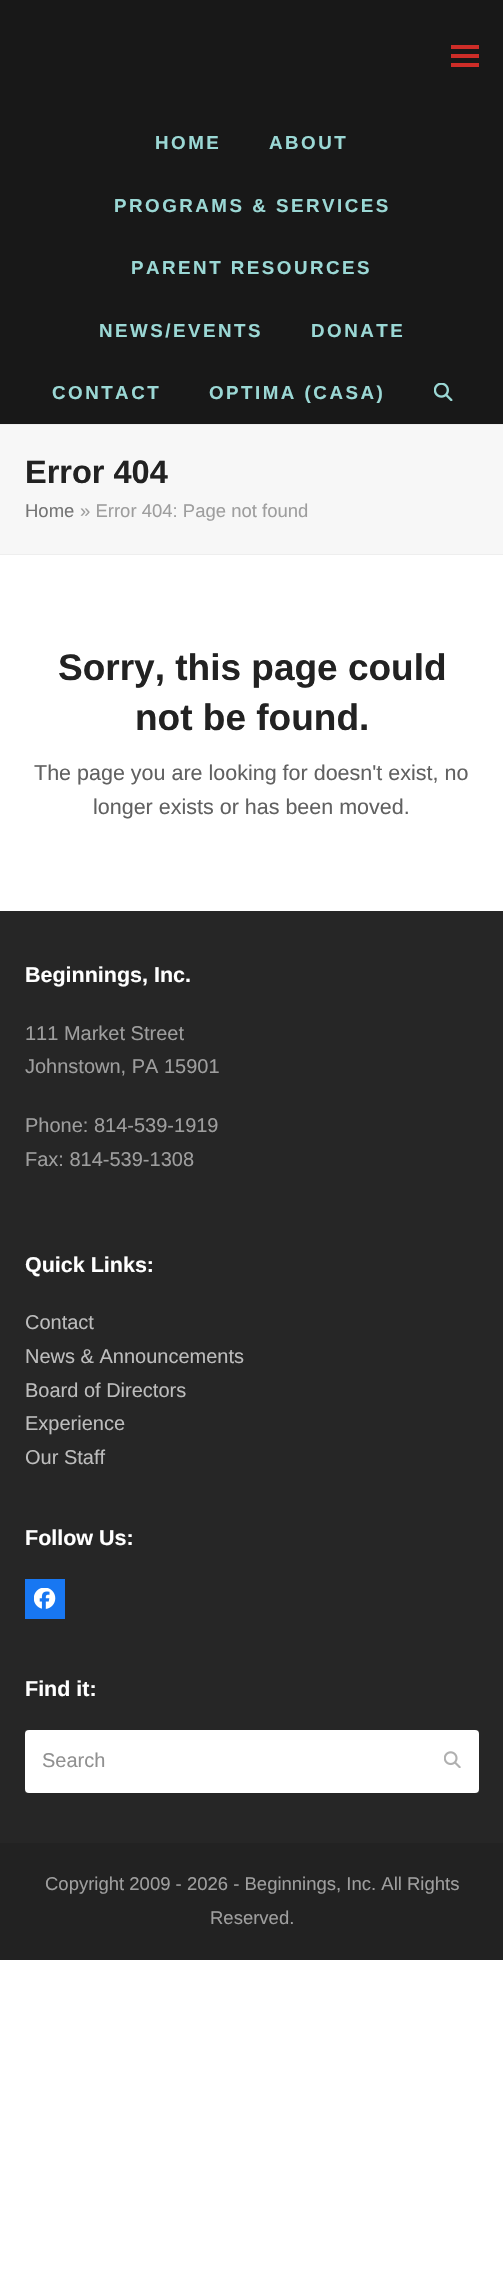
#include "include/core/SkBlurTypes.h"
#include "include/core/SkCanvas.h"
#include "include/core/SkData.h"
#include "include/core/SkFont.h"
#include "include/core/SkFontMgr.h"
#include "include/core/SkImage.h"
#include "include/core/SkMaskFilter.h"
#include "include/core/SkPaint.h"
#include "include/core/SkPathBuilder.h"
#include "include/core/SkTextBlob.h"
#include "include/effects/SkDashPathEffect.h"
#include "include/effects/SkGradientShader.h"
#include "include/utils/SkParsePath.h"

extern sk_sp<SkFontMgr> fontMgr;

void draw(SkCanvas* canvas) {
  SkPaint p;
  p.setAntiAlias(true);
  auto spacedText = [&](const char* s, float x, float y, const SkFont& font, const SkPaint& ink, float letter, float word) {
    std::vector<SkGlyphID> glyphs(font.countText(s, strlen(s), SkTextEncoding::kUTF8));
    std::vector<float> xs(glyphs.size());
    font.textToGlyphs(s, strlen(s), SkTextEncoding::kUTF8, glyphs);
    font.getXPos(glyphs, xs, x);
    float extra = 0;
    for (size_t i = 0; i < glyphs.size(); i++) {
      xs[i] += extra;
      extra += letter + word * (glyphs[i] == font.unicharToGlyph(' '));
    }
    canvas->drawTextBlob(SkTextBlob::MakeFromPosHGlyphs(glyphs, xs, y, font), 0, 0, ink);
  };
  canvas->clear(SK_ColorWHITE);
  p.setColor(SkColorSetRGB(24, 24, 24));
  canvas->drawRect(SkRect::MakeLTRB(0, 0, 503, 424), p);
  p.setColor(SkColorSetRGB(206, 45, 40));
  canvas->drawRect(SkRect::MakeLTRB(451, 54, 479, 58), p);
  canvas->drawRect(SkRect::MakeLTRB(451, 45, 479, 49), p);
  canvas->drawRect(SkRect::MakeLTRB(451, 63, 479, 67), p);
  canvas->drawImageRect(SkImages::DeferredFromEncodedData(SkData::MakeFromFileName("images/1.png")), SkRect::MakeLTRB(434, 383, 453, 401), SkSamplingOptions());
  p.setColor(SkColorSetRGB(247, 247, 247));
  canvas->drawRect(SkRect::MakeLTRB(0, 425, 503, 554), p);
  p.setColor(SkColorSetRGB(238, 238, 238));
  canvas->drawRect(SkRect::MakeLTRB(0, 424, 503, 425), p);
  canvas->drawRect(SkRect::MakeLTRB(0, 554, 503, 555), p);
  p.setColor(SkColorSetRGB(38, 38, 38));
  canvas->drawRect(SkRect::MakeLTRB(0, 911, 503, 1843), p);
  p.setColor(SkColorSetRGB(24, 119, 242));
  canvas->drawRect(SkRect::MakeLTRB(25, 1579, 65, 1619), p);
  canvas->drawImageRect(SkImages::DeferredFromEncodedData(SkData::MakeFromFileName("images/2.png")), SkRect::MakeLTRB(34, 1588, 56, 1609), SkSamplingOptions());
  p.setColor(SK_ColorWHITE);
  canvas->drawRoundRect(SkRect::MakeLTRB(25, 1730, 479, 1793), 4, 4, p);
  p.setStyle(SkPaint::kStroke_Style);
  p.setStrokeWidth(1);
  p.setColor(SkColorSetARGB(15, 255, 255, 255));
  canvas->drawRect(SkRect::MakeLTRB(25.5f, 1730.5f, 478.5f, 1792.5f), p);
  canvas->drawImageRect(SkImages::DeferredFromEncodedData(SkData::MakeFromFileName("images/3.png")), SkRect::MakeLTRB(444, 1751, 461, 1768), SkSamplingOptions());
  p.setStyle(SkPaint::kFill_Style);
  p.setColor(SkColorSetRGB(34, 34, 34));
  canvas->drawRect(SkRect::MakeLTRB(0, 1843, 503, 1960), p);
  SkFont font1(fontMgr->matchFamilyStyle("Liberation Sans", SkFontStyle::Bold()), 18.75f);
  font1.setSubpixel(true);
  p.setColor(SkColorSetRGB(155, 216, 213));
  spacedText("HOME", 155, 149, font1, p, 2.5f, 0);
  spacedText("ABOUT", 269, 149, font1, p, 2.5f, 0);
  spacedText("PROGRAMS & SERVICES", 114, 212, font1, p, 2.5f, 0);
  spacedText("PARENT RESOURCES", 131, 274, font1, p, 2.5f, 0);
  spacedText("NEWS/EVENTS", 99, 337, font1, p, 2.5f, 0);
  spacedText("DONATE", 311, 337, font1, p, 2.5f, 0);
  spacedText("CONTACT", 52, 399, font1, p, 2.5f, 0);
  spacedText("OPTIMA (CASA)", 209, 399, font1, p, 2.5f, 0);
  SkFont font2(fontMgr->matchFamilyStyle("Liberation Sans", SkFontStyle::Bold()), 32.5f);
  font2.setSubpixel(true);
  p.setColor(SkColorSetRGB(34, 34, 34));
  canvas->drawString("Error 404", 25, 483, font2, p);
  SkFont font3(fontMgr->matchFamilyStyle("Liberation Sans", SkFontStyle::Normal()), 18.5f);
  font3.setSubpixel(true);
  p.setColor(SkColorSetRGB(117, 117, 117));
  canvas->drawString("Home", 25, 517, font3, p);
  p.setColor(SkColorSetRGB(158, 158, 158));
  canvas->drawString("» Error 404: Page not found", 80, 517, font3, p);
  SkFont font4(fontMgr->matchFamilyStyle("Liberation Sans", SkFontStyle::Bold()), 37);
  font4.setSubpixel(true);
  p.setColor(SkColorSetRGB(34, 34, 34));
  canvas->drawString("Sorry, this page could", 58, 680, font4, p);
  canvas->drawString("not be found.", 135, 730, font4, p);
  SkFont font5(fontMgr->matchFamilyStyle("Liberation Sans", SkFontStyle::Normal()), 21.5f);
  font5.setSubpixel(true);
  p.setColor(SkColorSetRGB(97, 97, 97));
  canvas->drawString("The page you are looking for doesn't exist, no", 34, 780, font5, p);
  canvas->drawString("longer exists or has been moved.", 93, 814, font5, p);
  SkFont font6(fontMgr->matchFamilyStyle("Liberation Sans", SkFontStyle::Bold()), 21.5f);
  font6.setSubpixel(true);
  p.setColor(SK_ColorWHITE);
  canvas->drawString("Beginnings, Inc.", 25, 982, font6, p);
  SkFont font7(fontMgr->matchFamilyStyle("Liberation Sans", SkFontStyle::Normal()), 20);
  font7.setSubpixel(true);
  p.setColor(SkColorSetRGB(158, 158, 158));
  canvas->drawString("111 Market Street", 25, 1040, font7, p);
  canvas->drawString("Johnstown, PA 15901", 25, 1073, font7, p);
  canvas->drawString("Phone: 814-539-1919", 25, 1132, font7, p);
  canvas->drawString("Fax: 814-539-1308", 25, 1166, font7, p);
  p.setColor(SK_ColorWHITE);
  canvas->drawString("Quick Links:", 25, 1272, font6, p);
  p.setColor(SkColorSetRGB(189, 189, 189));
  canvas->drawString("Contact", 25, 1329, font7, p);
  canvas->drawString("News & Announcements", 25, 1363, font7, p);
  canvas->drawString("Board of Directors", 25, 1397, font7, p);
  canvas->drawString("Experience", 25, 1430, font7, p);
  canvas->drawString("Our Staff", 25, 1464, font7, p);
  p.setColor(SK_ColorWHITE);
  canvas->drawString("Follow Us:", 25, 1545, font6, p);
  canvas->drawString("Find it:", 25, 1696, font6, p);
  p.setColor(SkColorSetRGB(144, 144, 144));
  canvas->drawString("Search", 42, 1767, font7, p);
  p.setColor(SkColorSetRGB(158, 158, 158));
  canvas->drawString("Copyright 2009 - 2026 - Beginnings, Inc. All Rights", 45, 1890, font3, p);
  canvas->drawString("Reserved.", 210, 1924, font3, p);
}
